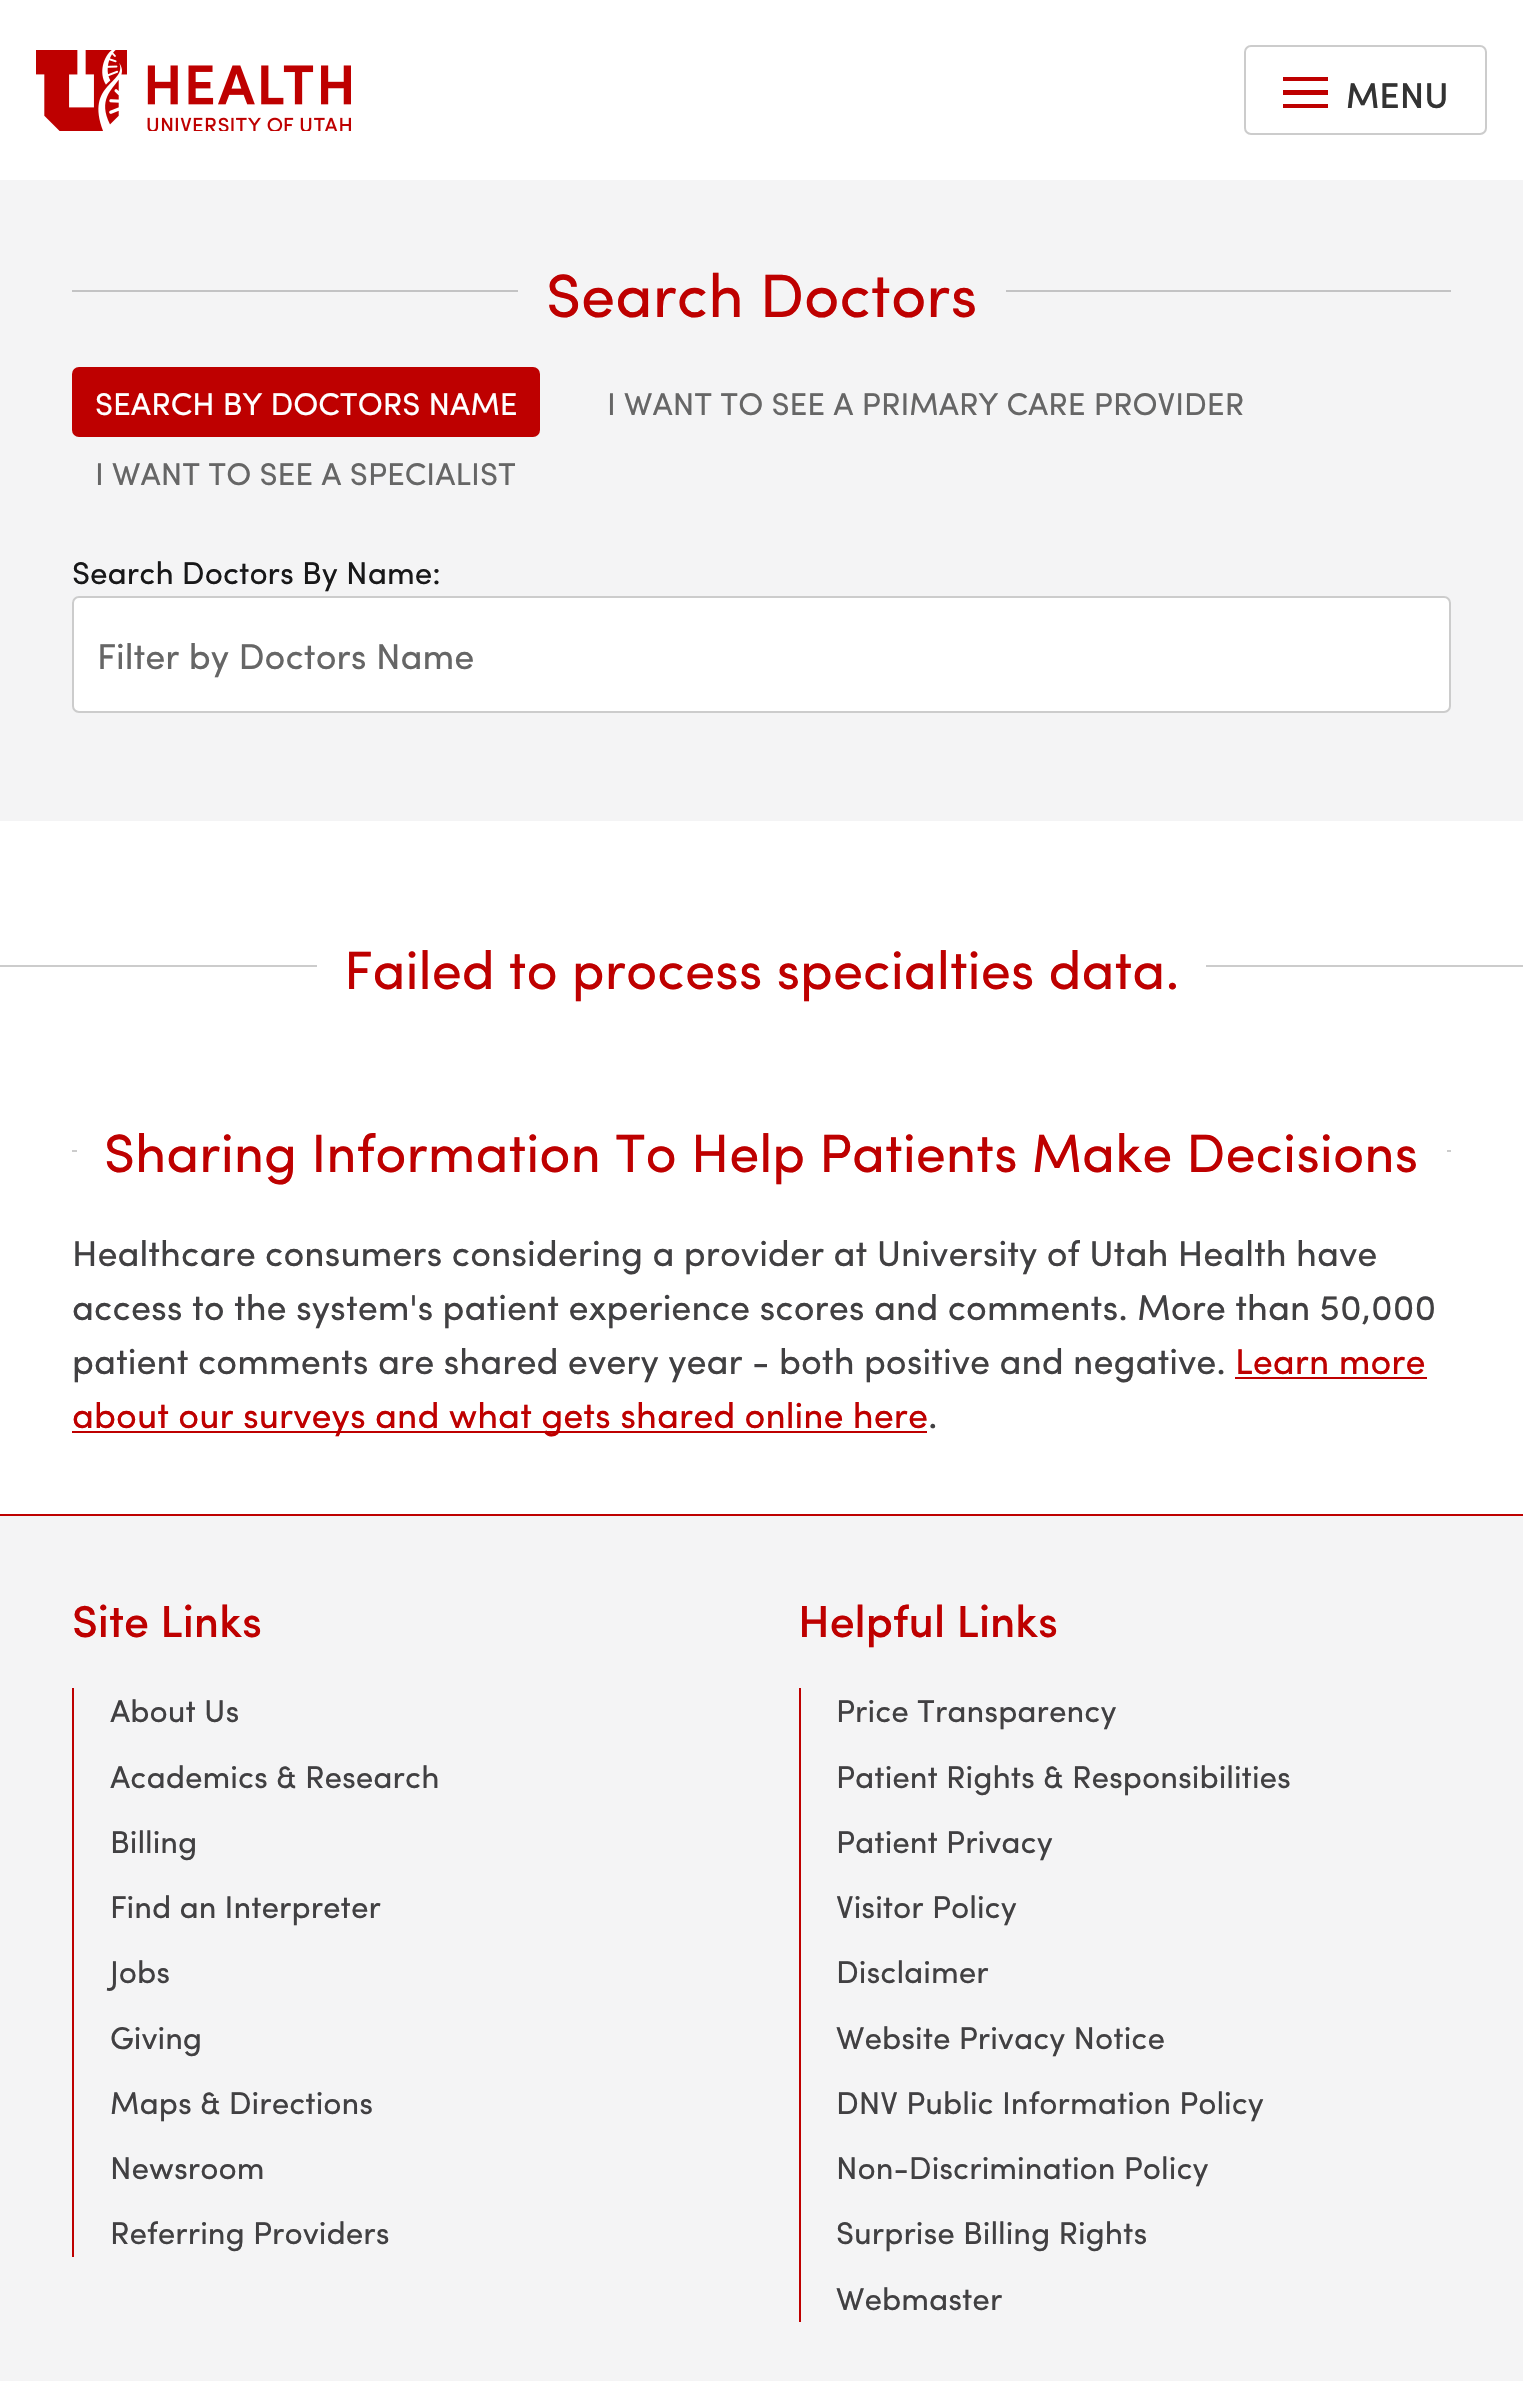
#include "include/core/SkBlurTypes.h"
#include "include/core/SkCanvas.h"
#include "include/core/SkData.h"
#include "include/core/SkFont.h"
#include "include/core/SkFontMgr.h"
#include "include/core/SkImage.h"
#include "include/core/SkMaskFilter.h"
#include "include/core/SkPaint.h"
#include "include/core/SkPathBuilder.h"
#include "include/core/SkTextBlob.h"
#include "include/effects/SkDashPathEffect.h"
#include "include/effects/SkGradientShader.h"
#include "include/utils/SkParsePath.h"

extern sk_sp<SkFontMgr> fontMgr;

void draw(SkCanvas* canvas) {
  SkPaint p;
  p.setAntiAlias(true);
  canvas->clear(SK_ColorWHITE);
  canvas->drawImageRect(SkImages::DeferredFromEncodedData(SkData::MakeFromFileName("images/1.png")), SkRect::MakeLTRB(36, 50, 351, 131), SkSamplingOptions());
  p.setStyle(SkPaint::kStroke_Style);
  p.setStrokeWidth(2);
  p.setColor(SkColorSetRGB(204, 204, 204));
  canvas->drawRoundRect(SkRect::MakeLTRB(1245, 46, 1486, 134), 6, 6, p);
  p.setStyle(SkPaint::kFill_Style);
  p.setColor(SkColorSetRGB(190, 0, 0));
  canvas->drawRect(SkRect::MakeLTRB(1283, 77, 1328, 81), p);
  canvas->drawRect(SkRect::MakeLTRB(1283, 90, 1328, 95), p);
  canvas->drawRect(SkRect::MakeLTRB(1283, 104, 1328, 108), p);
  p.setColor(SkColorSetRGB(244, 244, 245));
  canvas->drawRect(SkRect::MakeLTRB(0, 180, 1523, 821), p);
  p.setColor(SkColorSetRGB(195, 195, 196));
  canvas->drawRect(SkRect::MakeLTRB(72, 290, 518, 292), p);
  canvas->drawRect(SkRect::MakeLTRB(1006, 290, 1451, 292), p);
  p.setColor(SkColorSetRGB(190, 0, 0));
  canvas->drawRoundRect(SkRect::MakeLTRB(72, 367, 540, 437), 7, 7, p);
  p.setColor(SK_ColorWHITE);
  canvas->drawRoundRect(SkRect::MakeLTRB(72, 596, 1451, 713), 7, 7, p);
  p.setStyle(SkPaint::kStroke_Style);
  p.setColor(SkColorSetARGB(51, 0, 0, 0));
  canvas->drawRoundRect(SkRect::MakeLTRB(73, 597, 1450, 712), 6, 6, p);
  p.setStyle(SkPaint::kFill_Style);
  p.setColor(SkColorSetRGB(204, 204, 204));
  canvas->drawRect(SkRect::MakeLTRB(0, 965, 317, 967), p);
  canvas->drawRect(SkRect::MakeLTRB(1206, 965, 1523, 967), p);
  canvas->drawRect(SkRect::MakeLTRB(72, 1150, 77, 1152), p);
  canvas->drawRect(SkRect::MakeLTRB(1447, 1150, 1451, 1152), p);
  p.setColor(SkColorSetRGB(190, 0, 0));
  canvas->drawRect(SkRect::MakeLTRB(1235, 1377, 1427, 1379), p);
  canvas->drawRect(SkRect::MakeLTRB(72, 1431, 927, 1433), p);
  p.setColor(SkColorSetRGB(244, 244, 245));
  canvas->drawRect(SkRect::MakeLTRB(0, 1516, 1523, 2381), p);
  p.setColor(SkColorSetRGB(190, 0, 0));
  canvas->drawRect(SkRect::MakeLTRB(0, 1514, 1523, 1516), p);
  canvas->drawRect(SkRect::MakeLTRB(72, 1688, 74, 2257), p);
  canvas->drawRect(SkRect::MakeLTRB(799, 1688, 801, 2322), p);
  SkFont font1(fontMgr->matchFamilyStyle("Sofia", SkFontStyle(500, SkFontStyle::kNormal_Width, SkFontStyle::kUpright_Slant)), 36);
  font1.setSubpixel(true);
  p.setColor(SkColorSetRGB(51, 51, 51));
  canvas->drawString("MENU", 1346, 108, font1, p);
  SkFont font2(fontMgr->matchFamilyStyle("Sofia", SkFontStyle::Normal()), 61.25f);
  font2.setSubpixel(true);
  p.setColor(SkColorSetRGB(190, 0, 0));
  canvas->drawString("Search Doctors", 546, 317, font2, p);
  SkFont font3(fontMgr->matchFamilyStyle("Sofia", SkFontStyle::Normal()), 31.5f);
  font3.setSubpixel(true);
  p.setColor(SK_ColorWHITE);
  canvas->drawString("SEARCH BY DOCTORS NAME", 95, 415, font3, p);
  p.setColor(SkColorSetRGB(102, 102, 102));
  canvas->drawString("I WANT TO SEE A PRIMARY CARE PROVIDER", 607, 415, font3, p);
  canvas->drawString("I WANT TO SEE A SPECIALIST", 95, 485, font3, p);
  p.setColor(SkColorSetRGB(24, 24, 25));
  canvas->drawString("Search Doctors By Name:", 72, 584, font3, p);
  SkFont font4(fontMgr->matchFamilyStyle("Sofia", SkFontStyle::Normal()), 36);
  font4.setSubpixel(true);
  p.setColor(SkColorSetRGB(102, 102, 102));
  canvas->drawString("Filter by Doctors Name", 97, 669, font4, p);
  SkFont font5(fontMgr->matchFamilyStyle("Sofia", SkFontStyle::Normal()), 54);
  font5.setSubpixel(true);
  p.setColor(SkColorSetRGB(190, 0, 0));
  canvas->drawString("Failed to process specialties data.", 344, 989, font5, p);
  canvas->drawString("Sharing Information To Help Patients Make Decisions", 104, 1172, font5, p);
  p.setColor(SkColorSetRGB(65, 64, 66));
  canvas->drawString("Healthcare consumers considering a provider at University of Utah Health have", 72, 1266, font4, p);
  canvas->drawString("access to the system's patient experience scores and comments. More than 50,000", 72, 1320, font4, p);
  canvas->drawString("patient comments are shared every year - both positive and negative.", 72, 1374, font4, p);
  p.setColor(SkColorSetRGB(190, 0, 0));
  canvas->drawString("Learn more", 1235, 1374, font4, p);
  canvas->drawString("about our surveys and what gets shared online here", 72, 1428, font4, p);
  p.setColor(SkColorSetRGB(65, 64, 66));
  canvas->drawString(".", 928, 1428, font4, p);
  SkFont font6(fontMgr->matchFamilyStyle("Sofia", SkFontStyle(500, SkFontStyle::kNormal_Width, SkFontStyle::kUpright_Slant)), 45);
  font6.setSubpixel(true);
  p.setColor(SkColorSetRGB(190, 0, 0));
  canvas->drawString("Site Links", 72, 1637, font6, p);
  p.setColor(SkColorSetRGB(65, 64, 66));
  canvas->drawString("About Us", 110, 1722, font3, p);
  canvas->drawString("Academics & Research", 110, 1788, font3, p);
  canvas->drawString("Billing", 110, 1853, font3, p);
  canvas->drawString("Find an Interpreter", 110, 1918, font3, p);
  canvas->drawString("Jobs", 110, 1983, font3, p);
  canvas->drawString("Giving", 110, 2049, font3, p);
  canvas->drawString("Maps & Directions", 110, 2114, font3, p);
  canvas->drawString("Newsroom", 110, 2179, font3, p);
  canvas->drawString("Referring Providers", 110, 2244, font3, p);
  p.setColor(SkColorSetRGB(190, 0, 0));
  canvas->drawString("Helpful Links", 798, 1637, font6, p);
  p.setColor(SkColorSetRGB(65, 64, 66));
  canvas->drawString("Price Transparency", 836, 1722, font3, p);
  canvas->drawString("Patient Rights & Responsibilities", 836, 1788, font3, p);
  canvas->drawString("Patient Privacy", 836, 1853, font3, p);
  canvas->drawString("Visitor Policy", 836, 1918, font3, p);
  canvas->drawString("Disclaimer", 836, 1983, font3, p);
  canvas->drawString("Website Privacy Notice", 836, 2049, font3, p);
  canvas->drawString("DNV Public Information Policy", 836, 2114, font3, p);
  canvas->drawString("Non-Discrimination Policy", 836, 2179, font3, p);
  canvas->drawString("Surprise Billing Rights", 836, 2244, font3, p);
  canvas->drawString("Webmaster", 836, 2310, font3, p);
}
